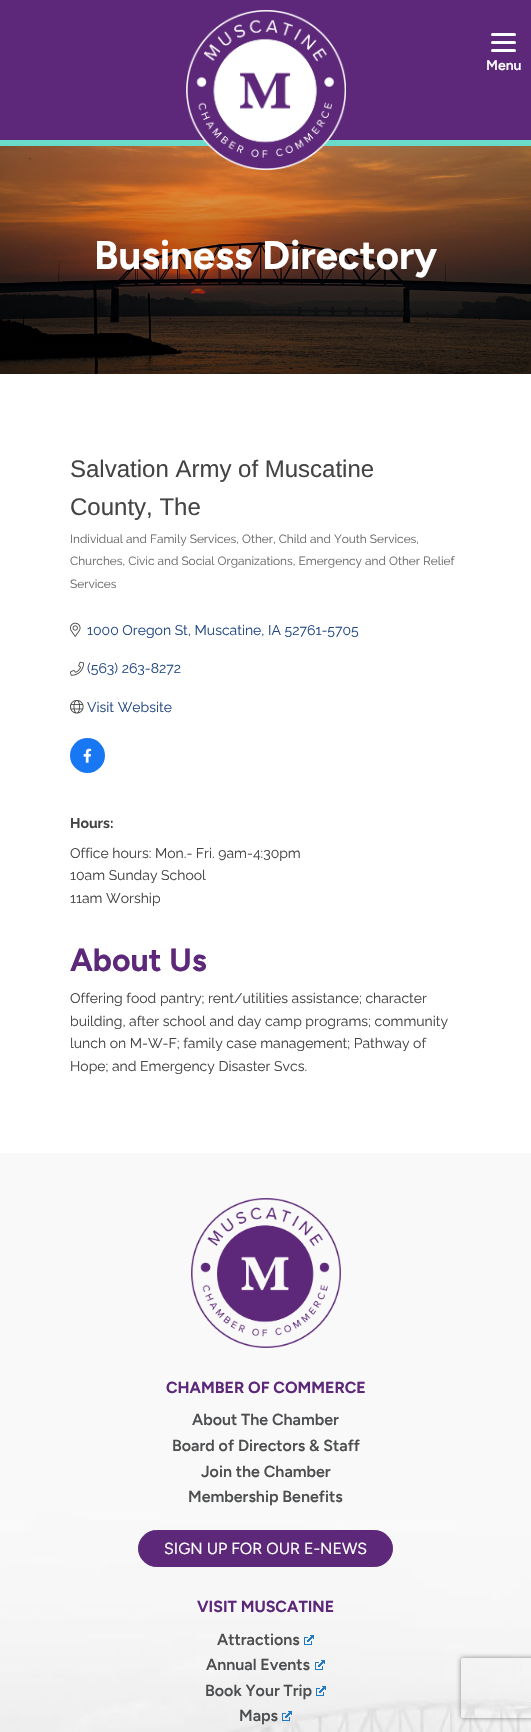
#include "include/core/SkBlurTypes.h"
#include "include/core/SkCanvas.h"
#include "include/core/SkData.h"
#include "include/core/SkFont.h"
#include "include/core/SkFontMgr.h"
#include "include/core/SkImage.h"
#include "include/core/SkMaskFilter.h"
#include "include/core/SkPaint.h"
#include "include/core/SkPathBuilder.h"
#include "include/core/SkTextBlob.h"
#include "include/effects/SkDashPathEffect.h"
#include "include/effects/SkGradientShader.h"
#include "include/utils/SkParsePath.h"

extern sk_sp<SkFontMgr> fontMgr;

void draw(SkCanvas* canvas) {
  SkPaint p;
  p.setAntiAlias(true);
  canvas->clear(SK_ColorWHITE);
  p.setColor(SkColorSetRGB(93, 40, 121));
  canvas->drawRect(SkRect::MakeLTRB(0, 0, 531, 140), p);
  p.setColor(SkColorSetRGB(105, 219, 200));
  canvas->drawRect(SkRect::MakeLTRB(0, 140, 531, 146), p);
  canvas->drawImageRect(SkImages::DeferredFromEncodedData(SkData::MakeFromFileName("images/2.png")), SkRect::MakeLTRB(0, 146, 531, 374), SkSamplingOptions());
  canvas->drawImageRect(SkImages::DeferredFromEncodedData(SkData::MakeFromFileName("images/1.png")), SkRect::MakeLTRB(186, 10, 346, 170), SkSamplingOptions());
  p.setColor(SK_ColorWHITE);
  canvas->drawRoundRect(SkRect::MakeLTRB(491, 41, 516, 44), 1.5f, 1.5f, p);
  canvas->drawRoundRect(SkRect::MakeLTRB(491, 33, 516, 36), 1.5f, 1.5f, p);
  canvas->drawRoundRect(SkRect::MakeLTRB(491, 49, 516, 52), 1.5f, 1.5f, p);
  canvas->drawImageRect(SkImages::DeferredFromEncodedData(SkData::MakeFromFileName("images/3.png")), SkRect::MakeLTRB(70, 622, 81, 637), SkSamplingOptions());
  canvas->drawImageRect(SkImages::DeferredFromEncodedData(SkData::MakeFromFileName("images/4.png")), SkRect::MakeLTRB(70, 661, 84, 676), SkSamplingOptions());
  canvas->drawImageRect(SkImages::DeferredFromEncodedData(SkData::MakeFromFileName("images/5.png")), SkRect::MakeLTRB(70, 700, 84, 714), SkSamplingOptions());
  p.setColor(SkColorSetRGB(24, 119, 242));
  canvas->drawCircle(87.5f, 755.5f, 17.5f, p);
  canvas->drawImageRect(SkImages::DeferredFromEncodedData(SkData::MakeFromFileName("images/6.png")), SkRect::MakeLTRB(83, 748, 92, 763), SkSamplingOptions());
  canvas->drawImageRect(SkImages::DeferredFromEncodedData(SkData::MakeFromFileName("images/7.png")), SkRect::MakeLTRB(0, 1153, 531, 1732), SkSamplingOptions());
  canvas->drawImageRect(SkImages::DeferredFromEncodedData(SkData::MakeFromFileName("images/8.png")), SkRect::MakeLTRB(191, 1198, 341, 1348), SkSamplingOptions());
  p.setColor(SkColorSetRGB(93, 40, 121));
  canvas->drawRoundRect(SkRect::MakeLTRB(138.5f, 1530.5f, 392.5f, 1566.5f), 18, 18, p);
  p.setStyle(SkPaint::kStroke_Style);
  p.setStrokeWidth(1);
  canvas->drawRoundRect(SkRect::MakeLTRB(138.5f, 1530.5f, 392.5f, 1566.5f), 18, 18, p);
  canvas->drawImageRect(SkImages::DeferredFromEncodedData(SkData::MakeFromFileName("images/9.png")), SkRect::MakeLTRB(304, 1635, 314, 1645), SkSamplingOptions());
  canvas->drawImageRect(SkImages::DeferredFromEncodedData(SkData::MakeFromFileName("images/10.png")), SkRect::MakeLTRB(315, 1660, 325, 1670), SkSamplingOptions());
  canvas->drawImageRect(SkImages::DeferredFromEncodedData(SkData::MakeFromFileName("images/11.png")), SkRect::MakeLTRB(316, 1686, 326, 1696), SkSamplingOptions());
  canvas->drawImageRect(SkImages::DeferredFromEncodedData(SkData::MakeFromFileName("images/12.png")), SkRect::MakeLTRB(282, 1711, 292, 1721), SkSamplingOptions());
  canvas->save();
  canvas->clipPath(SkPathBuilder(SkPathFillType::kEvenOdd).moveTo(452, 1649).lineTo(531, 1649).lineTo(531, 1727).lineTo(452, 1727).close().moveTo(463, 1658).lineTo(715, 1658).cubicTo(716, 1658, 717, 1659, 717, 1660).lineTo(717, 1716).cubicTo(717, 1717, 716, 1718, 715, 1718).lineTo(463, 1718).cubicTo(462, 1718, 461, 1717, 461, 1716).lineTo(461, 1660).cubicTo(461, 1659, 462, 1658, 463, 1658).close().detach(), true);
  p.setStyle(SkPaint::kFill_Style);
  p.setColor(SkColorSetRGB(128, 128, 128));
  p.setMaskFilter(SkMaskFilter::MakeBlur(kNormal_SkBlurStyle, 2.5f));
  canvas->drawRoundRect(SkRect::MakeLTRB(461, 1658, 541, 1718), 2, 2, p);
  p.setMaskFilter(nullptr);
  canvas->restore();
  SkFont font1(fontMgr->matchFamilyStyle("Figtree", SkFontStyle(600, SkFontStyle::kNormal_Width, SkFontStyle::kUpright_Slant)), 14);
  font1.setSubpixel(true);
  p.setColor(SK_ColorWHITE);
  canvas->drawString("Menu", 486, 70, font1, p);
  SkFont font2(fontMgr->matchFamilyStyle("Figtree", SkFontStyle::Bold()), 40);
  font2.setSubpixel(true);
  canvas->drawString("Business Directory", 94, 269, font2, p);
  SkFont font3(fontMgr->matchFamilyStyle("Liberation Sans", SkFontStyle::Normal()), 24);
  font3.setSubpixel(true);
  p.setColor(SkColorSetRGB(68, 68, 68));
  canvas->drawString("Salvation Army of Muscatine", 70, 477, font3, p);
  canvas->drawString("County, The", 70, 515, font3, p);
  SkFont font4(fontMgr->matchFamilyStyle("Raleway", SkFontStyle::Normal()), 11.9f);
  font4.setSubpixel(true);
  p.setColor(SkColorSetRGB(105, 105, 105));
  canvas->drawString("Individual and Family Services, Other, Child and Youth Services,", 70, 543, font4, p);
  canvas->drawString("Churches, Civic and Social Organizations, Emergency and Other Relief", 70, 565, font4, p);
  canvas->drawString("Services", 70, 588, font4, p);
  SkFont font5(fontMgr->matchFamilyStyle("Raleway", SkFontStyle::Normal()), 14);
  font5.setSubpixel(true);
  p.setColor(SkColorSetRGB(34, 72, 132));
  canvas->drawString("1000 Oregon St, Muscatine, IA 52761-5705", 87, 635, font5, p);
  canvas->drawString("(563) 263-8272", 87, 673, font5, p);
  canvas->drawString("Visit Website", 87, 712, font5, p);
  SkFont font6(fontMgr->matchFamilyStyle("Raleway", SkFontStyle::Bold()), 14);
  font6.setSubpixel(true);
  p.setColor(SkColorSetRGB(68, 68, 68));
  canvas->drawString("Hours:", 70, 828, font6, p);
  canvas->drawString("Office hours: Mon.- Fri. 9am-4:30pm", 70, 858, font5, p);
  canvas->drawString("10am Sunday School", 70, 880, font5, p);
  canvas->drawString("11am Worship", 70, 903, font5, p);
  SkFont font7(fontMgr->matchFamilyStyle("Figtree", SkFontStyle::Bold()), 32);
  font7.setSubpixel(true);
  p.setColor(SkColorSetRGB(93, 40, 121));
  canvas->drawString("About Us", 70, 971, font7, p);
  p.setColor(SkColorSetRGB(68, 68, 68));
  canvas->drawString("Offering food pantry; rent/utilities assistance; character", 70, 1003, font5, p);
  canvas->drawString("building, after school and day camp programs; community", 70, 1026, font5, p);
  canvas->drawString("lunch on M-W-F; family case management; Pathway of", 70, 1048, font5, p);
  canvas->drawString("Hope; and Emergency Disaster Svcs.", 70, 1071, font5, p);
  SkFont font8(fontMgr->matchFamilyStyle("Figtree", SkFontStyle::Bold()), 16);
  font8.setSubpixel(true);
  p.setColor(SkColorSetRGB(93, 40, 121));
  canvas->drawString("CHAMBER OF COMMERCE", 166, 1393, font8, p);
  SkFont font9(fontMgr->matchFamilyStyle("Figtree", SkFontStyle(600, SkFontStyle::kNormal_Width, SkFontStyle::kUpright_Slant)), 16);
  font9.setSubpixel(true);
  p.setColor(SkColorSetRGB(76, 78, 80));
  canvas->drawString("About The Chamber", 192, 1425, font9, p);
  canvas->drawString("Board of Directors & Staff", 172, 1451, font9, p);
  canvas->drawString("Join the Chamber", 201, 1477, font9, p);
  canvas->drawString("Membership Benefits", 188, 1502, font9, p);
  SkFont font10(fontMgr->matchFamilyStyle("Figtree", SkFontStyle::Normal()), 16);
  font10.setSubpixel(true);
  p.setColor(SK_ColorWHITE);
  canvas->drawString("SIGN UP FOR OUR E-NEWS", 164, 1554, font10, p);
  p.setColor(SkColorSetRGB(93, 40, 121));
  canvas->drawString("VISIT MUSCATINE", 197, 1612, font8, p);
  p.setColor(SkColorSetRGB(76, 78, 80));
  canvas->drawString("Attractions", 217, 1645, font9, p);
  canvas->drawString("Annual Events", 206, 1670, font9, p);
  canvas->drawString("Book Your Trip", 205, 1696, font9, p);
  canvas->drawString("Maps", 239, 1721, font9, p);
}
